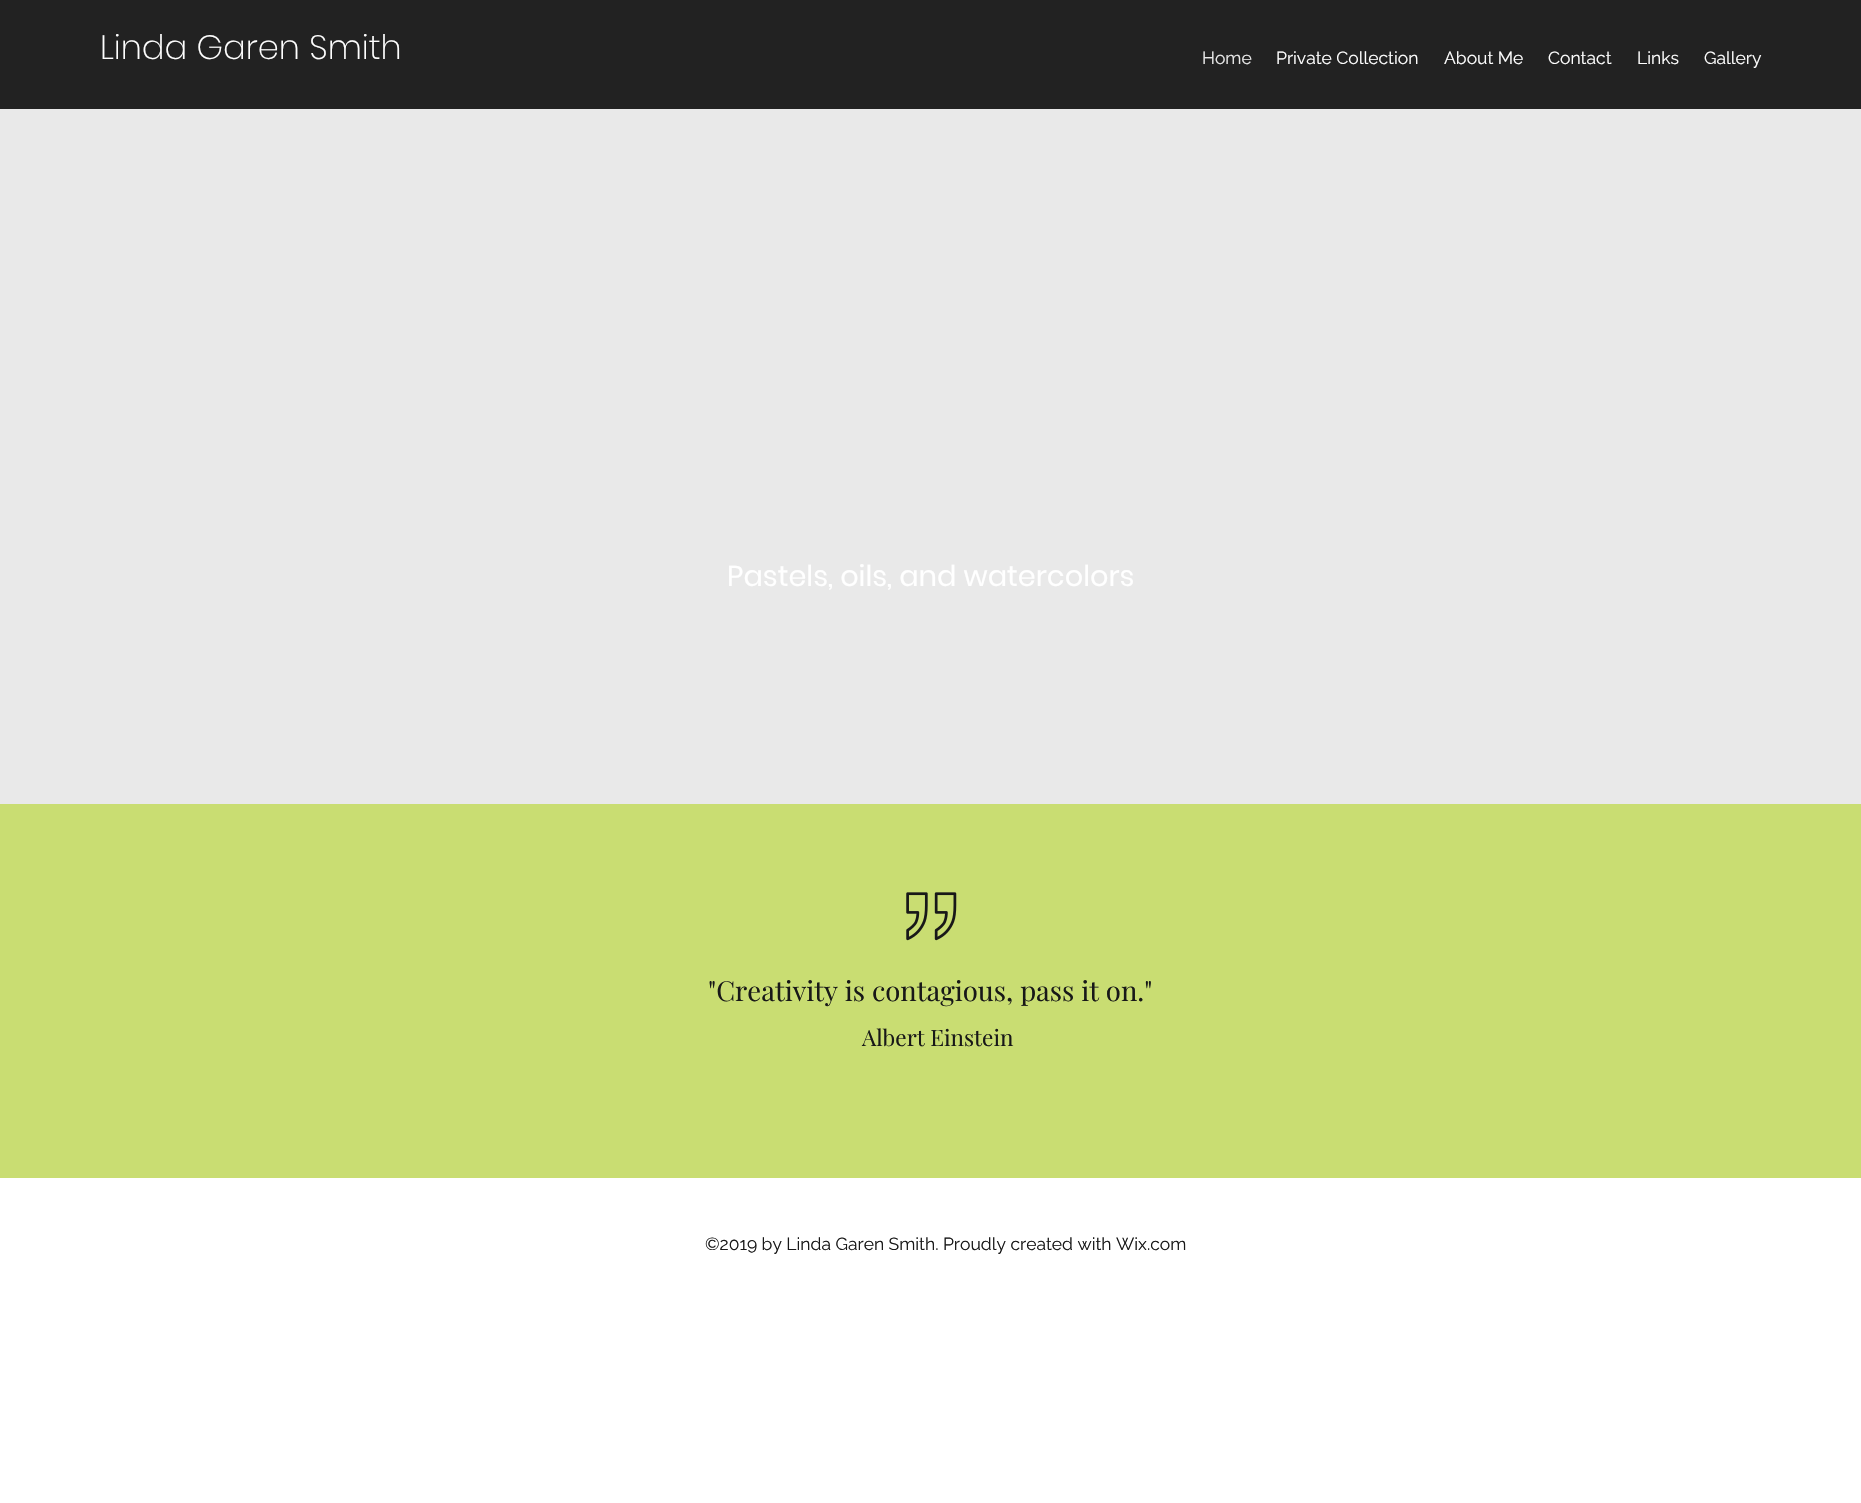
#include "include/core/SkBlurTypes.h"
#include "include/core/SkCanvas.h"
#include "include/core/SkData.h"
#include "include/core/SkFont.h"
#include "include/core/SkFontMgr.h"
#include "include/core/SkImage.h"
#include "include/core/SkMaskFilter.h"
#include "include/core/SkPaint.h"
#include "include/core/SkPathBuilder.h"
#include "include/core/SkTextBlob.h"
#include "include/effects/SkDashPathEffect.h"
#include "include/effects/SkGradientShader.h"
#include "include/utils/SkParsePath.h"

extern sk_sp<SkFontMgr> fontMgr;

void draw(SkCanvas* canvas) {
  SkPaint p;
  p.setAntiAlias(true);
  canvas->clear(SK_ColorWHITE);
  p.setColor(SkColorSetRGB(34, 34, 34));
  canvas->drawRect(SkRect::MakeLTRB(0, 0, 1861, 109), p);
  p.setColor(SkColorSetRGB(233, 233, 233));
  canvas->drawRect(SkRect::MakeLTRB(0, 109, 1861, 804), p);
  p.setColor(SkColorSetRGB(201, 221, 114));
  canvas->drawRect(SkRect::MakeLTRB(0, 804, 1861, 1178), p);
  canvas->drawImageRect(SkImages::DeferredFromEncodedData(SkData::MakeFromFileName("images/1.png")), SkRect::MakeLTRB(906, 892, 957, 941), SkSamplingOptions());
  SkFont font1(fontMgr->matchFamilyStyle("Poppins", SkFontStyle(200, SkFontStyle::kNormal_Width, SkFontStyle::kUpright_Slant)), 33.75f);
  font1.setSubpixel(true);
  p.setColor(SK_ColorWHITE);
  canvas->drawString("Linda Garen Smith", 100, 59, font1, p);
  SkFont font2(fontMgr->matchFamilyStyle("Raleway", SkFontStyle::Normal()), 17.5f);
  font2.setSubpixel(true);
  p.setColor(SkColorSetRGB(233, 233, 233));
  canvas->drawString("Home", 1202, 64, font2, p);
  p.setColor(SK_ColorWHITE);
  canvas->drawString("Private Collection", 1276, 64, font2, p);
  canvas->drawString("About Me", 1444, 64, font2, p);
  canvas->drawString("Contact", 1548, 64, font2, p);
  canvas->drawString("Links", 1637, 64, font2, p);
  canvas->drawString("Gallery", 1704, 64, font2, p);
  SkFont font3(fontMgr->matchFamilyStyle("Poppins", SkFontStyle::Normal()), 28.75f);
  font3.setSubpixel(true);
  canvas->drawString("Pastels, oils, and watercolors", 727, 586, font3, p);
  SkFont font4(fontMgr->matchFamilyStyle("Playfair Display", SkFontStyle::Normal()), 27.5f);
  font4.setSubpixel(true);
  p.setColor(SkColorSetRGB(24, 24, 24));
  canvas->drawString("\"Creativity is contagious, pass it on.\"", 708, 1001, font4, p);
  SkFont font5(fontMgr->matchFamilyStyle("Playfair Display", SkFontStyle::Normal()), 22.5f);
  font5.setSubpixel(true);
  canvas->drawString("Albert Einstein", 862, 1046, font5, p);
  canvas->drawString("©2019 by Linda Garen Smith. Proudly created with Wix.com", 705, 1250, font2, p);
}
